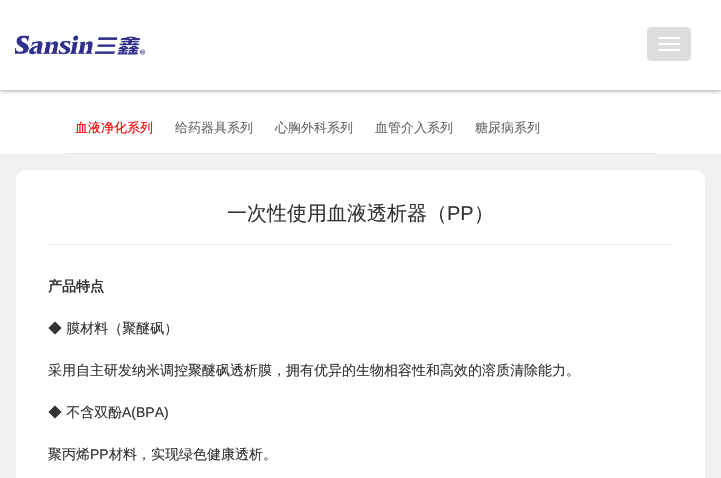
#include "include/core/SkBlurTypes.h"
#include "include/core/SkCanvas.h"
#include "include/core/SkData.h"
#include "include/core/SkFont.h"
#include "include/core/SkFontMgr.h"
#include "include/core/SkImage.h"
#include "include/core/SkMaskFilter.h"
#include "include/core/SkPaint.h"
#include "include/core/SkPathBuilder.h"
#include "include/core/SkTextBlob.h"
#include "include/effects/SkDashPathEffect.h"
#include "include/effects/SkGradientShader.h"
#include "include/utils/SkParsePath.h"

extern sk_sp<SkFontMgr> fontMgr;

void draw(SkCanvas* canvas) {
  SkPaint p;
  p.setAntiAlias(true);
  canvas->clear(SK_ColorWHITE);
  canvas->save();
  canvas->clipRect(SkRect::MakeLTRB(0, 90, 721, 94));
  p.setColor(SkColorSetARGB(128, 0, 0, 0));
  p.setMaskFilter(SkMaskFilter::MakeBlur(kNormal_SkBlurStyle, 2.5f));
  canvas->drawRect(SkRect::MakeLTRB(0, 0, 721, 90), p);
  p.setMaskFilter(nullptr);
  canvas->restore();
  canvas->drawImageRect(SkImages::DeferredFromEncodedData(SkData::MakeFromFileName("images/1.png")), SkRect::MakeLTRB(15, 35, 145, 55), SkSamplingOptions());
  p.setColor(SkColorSetRGB(221, 221, 221));
  canvas->drawRoundRect(SkRect::MakeLTRB(647.5f, 27.5f, 690.5f, 60.5f), 3.5f, 3.5f, p);
  p.setStyle(SkPaint::kStroke_Style);
  p.setStrokeWidth(1);
  canvas->drawRoundRect(SkRect::MakeLTRB(647.5f, 27.5f, 690.5f, 60.5f), 3.5f, 3.5f, p);
  p.setStyle(SkPaint::kFill_Style);
  p.setColor(SK_ColorWHITE);
  canvas->drawRoundRect(SkRect::MakeLTRB(658, 37, 680, 39), 1, 1, p);
  canvas->drawRoundRect(SkRect::MakeLTRB(658, 43, 680, 45), 1, 1, p);
  canvas->drawRoundRect(SkRect::MakeLTRB(658, 49, 680, 51), 1, 1, p);
  p.setColor(SkColorSetRGB(230, 230, 230));
  canvas->drawRect(SkRect::MakeLTRB(65, 153, 656, 154), p);
  p.setColor(SkColorSetRGB(241, 241, 241));
  canvas->drawRect(SkRect::MakeLTRB(0, 154, 721, 478), p);
  p.setColor(SK_ColorWHITE);
  canvas->drawRoundRect(SkRect::MakeLTRB(16, 170, 705, 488), 10, 10, p);
  p.setColor(SkColorSetRGB(238, 238, 238));
  canvas->drawRect(SkRect::MakeLTRB(48, 244, 673, 245), p);
  SkFont font1(fontMgr->matchFamilyStyle("WenQuanYi Zen Hei", SkFontStyle(500, SkFontStyle::kNormal_Width, SkFontStyle::kUpright_Slant)), 13);
  font1.setSubpixel(true);
  p.setColor(SkColorSetRGB(255, 0, 0));
  canvas->drawString("血液净化系列", 75, 132, font1, p);
  p.setColor(SkColorSetRGB(102, 102, 102));
  canvas->drawString("给药器具系列", 175, 132, font1, p);
  canvas->drawString("心胸外科系列", 275, 132, font1, p);
  canvas->drawString("血管介入系列", 375, 132, font1, p);
  canvas->drawString("糖尿病系列", 475, 132, font1, p);
  SkFont font2(fontMgr->matchFamilyStyle("WenQuanYi Zen Hei", SkFontStyle(500, SkFontStyle::kNormal_Width, SkFontStyle::kUpright_Slant)), 20);
  font2.setSubpixel(true);
  p.setColor(SkColorSetRGB(51, 51, 51));
  canvas->drawString("一次性使用血液透析器（", 227, 220, font2, p);
  SkFont font3(fontMgr->matchFamilyStyle("Liberation Sans", SkFontStyle::Normal()), 20);
  font3.setSubpixel(true);
  canvas->drawString("PP", 447, 220, font3, p);
  canvas->drawString("）", 474, 220, font2, p);
  SkFont font4(fontMgr->matchFamilyStyle("WenQuanYi Zen Hei", SkFontStyle::Bold()), 14);
  font4.setSubpixel(true);
  canvas->drawString("产品特点", 48, 291, font4, p);
  SkFont font5(fontMgr->matchFamilyStyle("WenQuanYi Zen Hei", SkFontStyle(500, SkFontStyle::kNormal_Width, SkFontStyle::kUpright_Slant)), 14);
  font5.setSubpixel(true);
  canvas->drawString("◆ 膜材料（聚醚砜）", 48, 333, font5, p);
  canvas->drawString("采用自主研发纳米调控聚醚砜透析膜，拥有优异的生物相容性和高效的溶质清除能力。", 48, 375, font5, p);
  canvas->drawString("◆ 不含双酚", 48, 417, font5, p);
  SkFont font6(fontMgr->matchFamilyStyle("Liberation Sans", SkFontStyle::Normal()), 14);
  font6.setSubpixel(true);
  canvas->drawString("A(BPA)", 122, 417, font6, p);
  canvas->drawString("聚丙烯", 48, 459, font5, p);
  canvas->drawString("PP", 90, 459, font6, p);
  canvas->drawString("材料，实现绿色健康透析。", 109, 459, font5, p);
}
